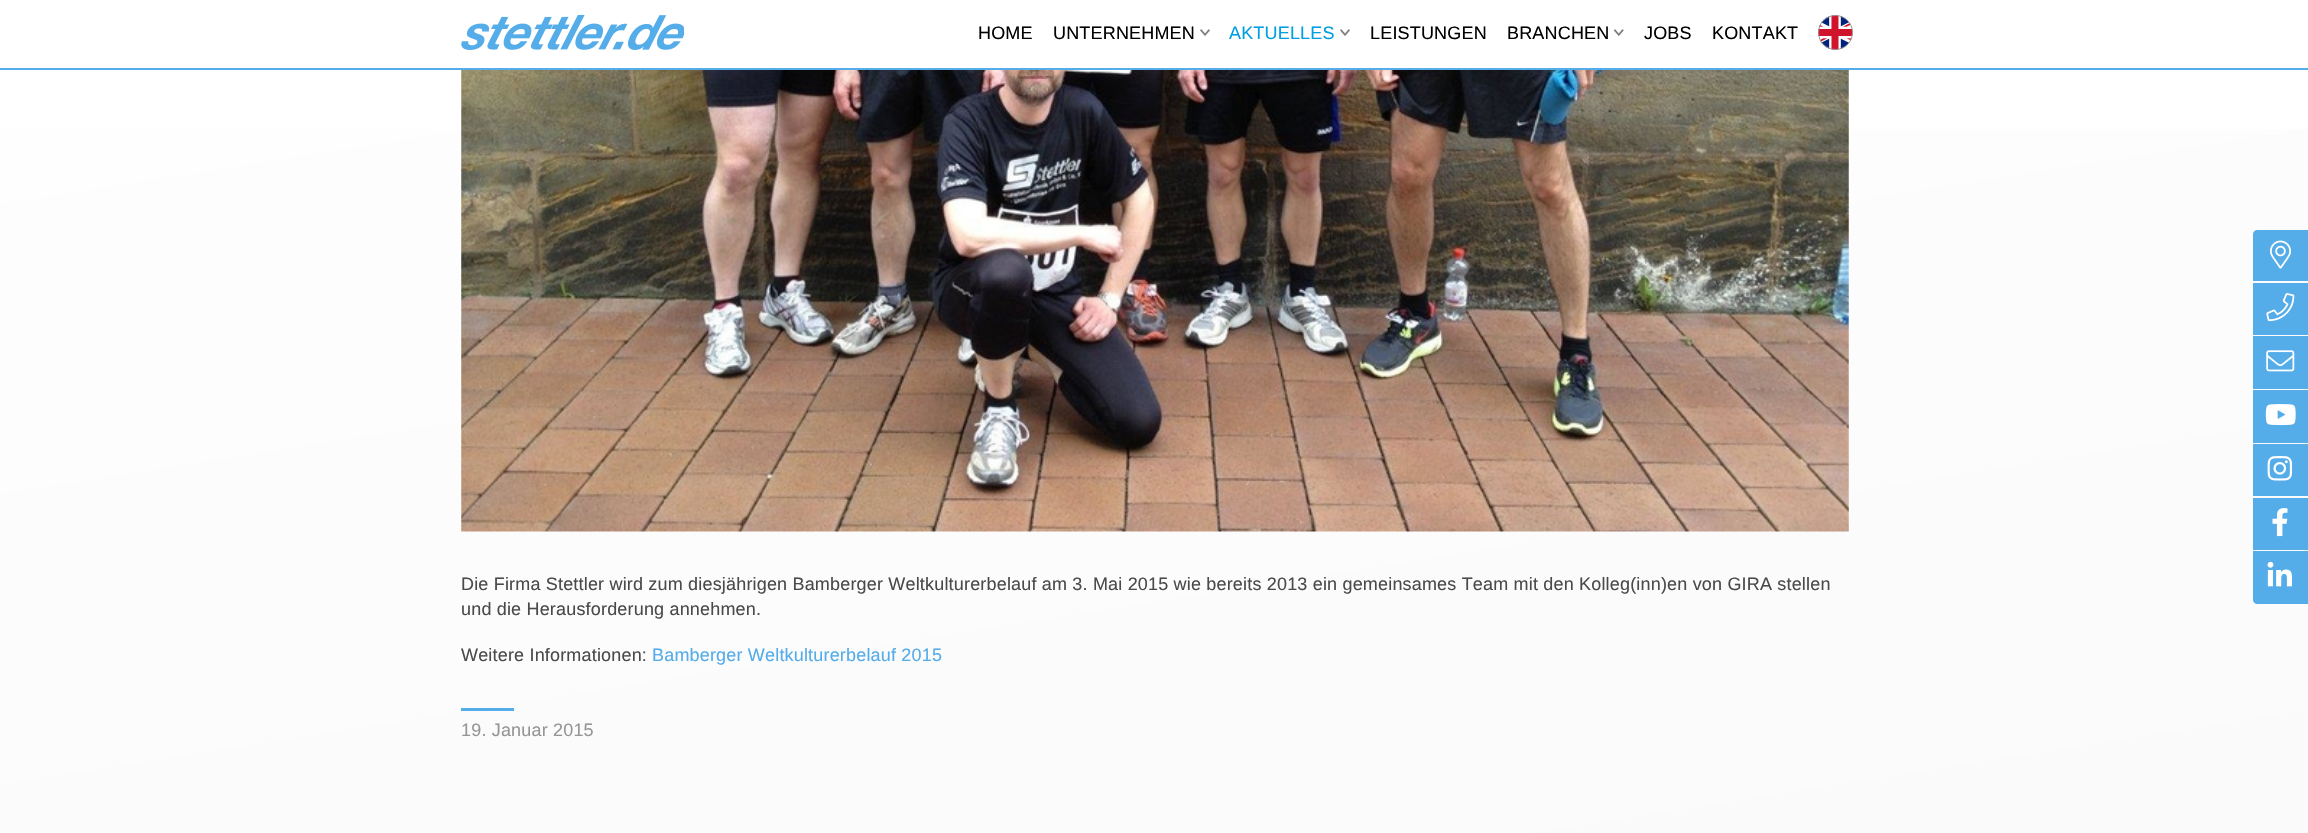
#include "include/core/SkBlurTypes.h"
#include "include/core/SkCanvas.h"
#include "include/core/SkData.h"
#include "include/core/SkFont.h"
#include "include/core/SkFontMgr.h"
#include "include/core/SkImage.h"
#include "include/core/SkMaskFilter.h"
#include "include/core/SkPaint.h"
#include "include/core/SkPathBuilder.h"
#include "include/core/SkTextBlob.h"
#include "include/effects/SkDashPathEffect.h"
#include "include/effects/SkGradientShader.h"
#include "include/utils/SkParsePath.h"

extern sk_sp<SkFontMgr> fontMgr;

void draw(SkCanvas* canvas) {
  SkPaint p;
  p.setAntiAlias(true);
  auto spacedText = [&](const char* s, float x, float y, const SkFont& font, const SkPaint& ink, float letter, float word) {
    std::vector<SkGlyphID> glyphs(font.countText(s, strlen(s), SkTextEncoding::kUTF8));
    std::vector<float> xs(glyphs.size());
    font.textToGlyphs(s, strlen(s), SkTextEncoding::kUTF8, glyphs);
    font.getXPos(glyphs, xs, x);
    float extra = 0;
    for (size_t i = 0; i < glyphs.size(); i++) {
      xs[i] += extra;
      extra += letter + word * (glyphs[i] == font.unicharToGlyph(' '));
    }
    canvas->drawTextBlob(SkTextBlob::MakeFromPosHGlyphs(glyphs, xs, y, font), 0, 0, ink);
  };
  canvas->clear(SK_ColorWHITE);
  p.setColor(SkColorSetRGB(84, 172, 233));
  canvas->drawPath(SkPathBuilder().moveTo(0, 68).lineTo(0, 70).lineTo(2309, 70).lineTo(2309, 3).lineTo(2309, 68).close().detach(), p);
  canvas->drawImageRect(SkImages::DeferredFromEncodedData(SkData::MakeFromFileName("images/1.png")), SkRect::MakeLTRB(461, 15, 684, 50), SkSamplingOptions());
  canvas->drawImageRect(SkImages::DeferredFromEncodedData(SkData::MakeFromFileName("images/2.png")), SkRect::MakeLTRB(1200, 29, 1210, 36), SkSamplingOptions());
  canvas->drawImageRect(SkImages::DeferredFromEncodedData(SkData::MakeFromFileName("images/2.png")), SkRect::MakeLTRB(1340, 29, 1350, 36), SkSamplingOptions());
  canvas->drawImageRect(SkImages::DeferredFromEncodedData(SkData::MakeFromFileName("images/3.png")), SkRect::MakeLTRB(1614, 29, 1624, 36), SkSamplingOptions());
  canvas->drawImageRect(SkImages::DeferredFromEncodedData(SkData::MakeFromFileName("images/4.png")), SkRect::MakeLTRB(1818, 15, 1853, 50), SkSamplingOptions());
  p.setStyle(SkPaint::kStroke_Style);
  p.setStrokeWidth(1);
  p.setColor(SkColorSetRGB(153, 153, 153));
  canvas->drawCircle(1835.5f, 32.5f, 17, p);
  p.setStyle(SkPaint::kFill_Style);
  {
    const SkColor colors[] = {SkColorSetRGB(240, 240, 240), SK_ColorWHITE, SkColorSetRGB(250, 250, 250)};
    const float stops[] = {0, 0.25f, 1};
    const SkPoint ends[] = {{1005, -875}, {1304, 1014}};
    p.setShader(SkGradientShader::MakeLinear(ends, colors, stops, 3, SkTileMode::kClamp));
    p.setAlpha(255);
  }
  canvas->drawRect(SkRect::MakeLTRB(0, 129, 2308, 833), p);
  p.setShader(nullptr);
  p.setColor(SkColorSetRGB(84, 172, 233));
  canvas->drawPath(SkPathBuilder().moveTo(2257, 230).lineTo(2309, 230).lineTo(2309, 281).lineTo(2253, 281).lineTo(2253, 234).cubicTo(2253, 232, 2255, 230, 2257, 230).close().detach(), p);
  canvas->drawImageRect(SkImages::DeferredFromEncodedData(SkData::MakeFromFileName("images/5.png")), SkRect::MakeLTRB(2270, 240, 2291, 269), SkSamplingOptions());
  canvas->drawRect(SkRect::MakeLTRB(2253, 283, 2308, 335), p);
  canvas->drawImageRect(SkImages::DeferredFromEncodedData(SkData::MakeFromFileName("images/6.png")), SkRect::MakeLTRB(2266, 293, 2295, 322), SkSamplingOptions());
  canvas->drawRect(SkRect::MakeLTRB(2253, 336, 2308, 389), p);
  canvas->drawImageRect(SkImages::DeferredFromEncodedData(SkData::MakeFromFileName("images/7.png")), SkRect::MakeLTRB(2266, 350, 2295, 372), SkSamplingOptions());
  canvas->drawRect(SkRect::MakeLTRB(2253, 390, 2308, 443), p);
  canvas->drawImageRect(SkImages::DeferredFromEncodedData(SkData::MakeFromFileName("images/8.png")), SkRect::MakeLTRB(2265, 404, 2296, 426), SkSamplingOptions());
  canvas->drawRect(SkRect::MakeLTRB(2253, 444, 2308, 496), p);
  canvas->drawImageRect(SkImages::DeferredFromEncodedData(SkData::MakeFromFileName("images/9.png")), SkRect::MakeLTRB(2267, 456, 2293, 481), SkSamplingOptions());
  canvas->drawRect(SkRect::MakeLTRB(2253, 498, 2308, 550), p);
  canvas->drawImageRect(SkImages::DeferredFromEncodedData(SkData::MakeFromFileName("images/10.png")), SkRect::MakeLTRB(2272, 508, 2288, 537), SkSamplingOptions());
  canvas->drawPath(SkPathBuilder().moveTo(2253, 551).lineTo(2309, 551).lineTo(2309, 604).lineTo(2257, 604).cubicTo(2255, 604, 2253, 602, 2253, 600).close().detach(), p);
  canvas->drawImageRect(SkImages::DeferredFromEncodedData(SkData::MakeFromFileName("images/11.png")), SkRect::MakeLTRB(2267, 561, 2292, 587), SkSamplingOptions());
  canvas->drawImageRect(SkImages::DeferredFromEncodedData(SkData::MakeFromFileName("images/12.png")), SkRect::MakeLTRB(461, 70, 1849, 532), SkSamplingOptions());
  canvas->drawRect(SkRect::MakeLTRB(461, 708, 514, 711), p);
  SkFont font1(fontMgr->matchFamilyStyle("Liberation Sans", SkFontStyle::Normal()), 18);
  font1.setSubpixel(true);
  p.setColor(SK_ColorBLACK);
  spacedText("HOME", 978, 39, font1, p, 0.18f, 0);
  spacedText("UNTERNEHMEN", 1053, 39, font1, p, 0.18f, 0);
  p.setColor(SkColorSetRGB(0, 158, 226));
  spacedText("AKTUELLES", 1229, 39, font1, p, 0.18f, 0);
  p.setColor(SK_ColorBLACK);
  spacedText("LEISTUNGEN", 1370, 39, font1, p, 0.18f, 0);
  spacedText("BRANCHEN", 1507, 39, font1, p, 0.18f, 0);
  spacedText("JOBS", 1644, 39, font1, p, 0.18f, 0);
  spacedText("KONTAKT", 1712, 39, font1, p, 0.18f, 0);
  p.setColor(SkColorSetRGB(74, 74, 74));
  spacedText("Die Firma Stettler wird zum diesjährigen Bamberger Weltkulturerbelauf am 3. Mai 2015 wie bereits 2013 ein gemeinsames Team mit den Kolleg(inn)en von GIRA stellen", 461, 590, font1, p, 0.18f, 0);
  spacedText("und die Herausforderung annehmen.", 461, 615, font1, p, 0.18f, 0);
  spacedText("Weitere Informationen:", 461, 661, font1, p, 0.18f, 0);
  p.setColor(SkColorSetRGB(84, 172, 233));
  spacedText("Bamberger Weltkulturerbelauf 2015", 652, 661, font1, p, 0.18f, 0);
  p.setColor(SkColorSetRGB(150, 150, 150));
  spacedText("19. Januar 2015", 461, 736, font1, p, 0.18f, 0);
}
